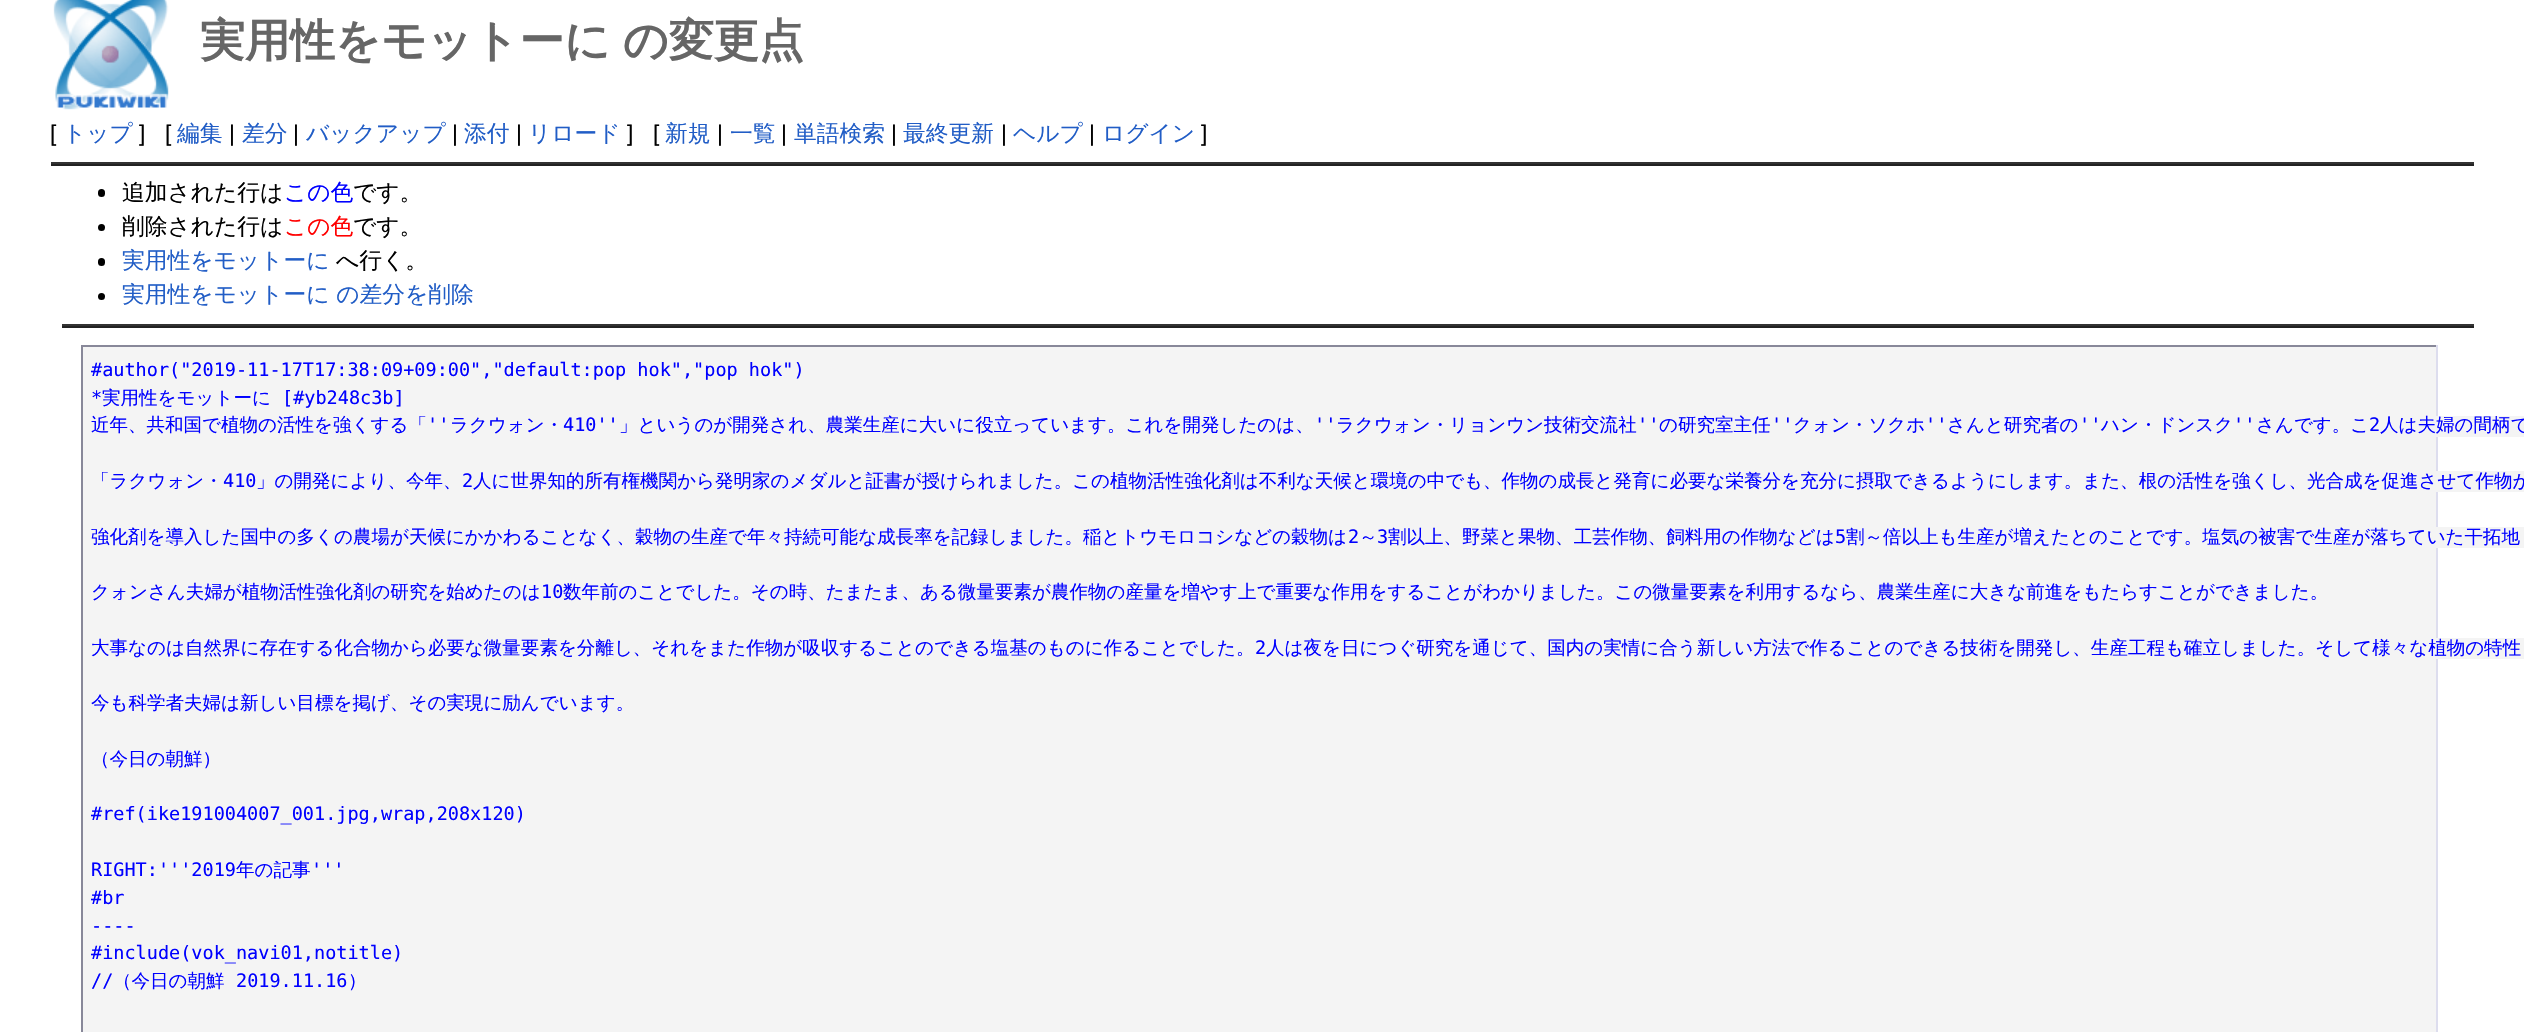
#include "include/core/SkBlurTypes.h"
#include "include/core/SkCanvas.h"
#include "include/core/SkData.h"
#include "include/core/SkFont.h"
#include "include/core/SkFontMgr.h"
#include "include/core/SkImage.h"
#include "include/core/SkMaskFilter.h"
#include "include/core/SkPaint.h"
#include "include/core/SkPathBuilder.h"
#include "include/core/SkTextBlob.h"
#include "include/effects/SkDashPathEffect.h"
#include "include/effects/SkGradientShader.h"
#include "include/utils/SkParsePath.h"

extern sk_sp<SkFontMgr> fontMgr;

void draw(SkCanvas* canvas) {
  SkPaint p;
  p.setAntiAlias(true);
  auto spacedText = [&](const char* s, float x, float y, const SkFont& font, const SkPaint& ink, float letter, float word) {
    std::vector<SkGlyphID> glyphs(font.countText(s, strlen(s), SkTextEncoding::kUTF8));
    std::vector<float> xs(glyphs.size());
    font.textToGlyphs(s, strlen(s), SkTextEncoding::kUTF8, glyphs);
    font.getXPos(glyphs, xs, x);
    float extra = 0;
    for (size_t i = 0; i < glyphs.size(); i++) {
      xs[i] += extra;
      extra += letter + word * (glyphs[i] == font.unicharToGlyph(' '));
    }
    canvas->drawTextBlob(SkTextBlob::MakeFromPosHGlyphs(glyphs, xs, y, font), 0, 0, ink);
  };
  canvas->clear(SK_ColorWHITE);
  canvas->drawImageRect(SkImages::DeferredFromEncodedData(SkData::MakeFromFileName("images/1.png")), SkRect::MakeLTRB(53, 0, 169, 110), SkSamplingOptions());
  p.setColor(SkColorSetRGB(51, 51, 51));
  canvas->drawRect(SkRect::MakeLTRB(51, 162, 2474, 164), p);
  p.setColor(SkColorSetRGB(34, 34, 34));
  canvas->drawRect(SkRect::MakeLTRB(51, 164, 2474, 166), p);
  p.setColor(SK_ColorBLACK);
  canvas->drawRoundRect(SkRect::MakeLTRB(98, 189, 105, 197), 3.5f, 3.5f, p);
  canvas->drawCircle(101.5f, 227.5f, 3.5f, p);
  canvas->drawRoundRect(SkRect::MakeLTRB(98, 258, 105, 266), 3.5f, 3.5f, p);
  canvas->drawCircle(101.5f, 296.5f, 3.5f, p);
  p.setColor(SkColorSetRGB(51, 51, 51));
  canvas->drawRect(SkRect::MakeLTRB(62, 324, 2474, 326), p);
  p.setColor(SkColorSetRGB(34, 34, 34));
  canvas->drawRect(SkRect::MakeLTRB(62, 326, 2474, 328), p);
  p.setColor(SkColorSetRGB(244, 244, 244));
  canvas->drawRect(SkRect::MakeLTRB(83, 347, 2436, 1032), p);
  p.setColor(SkColorSetRGB(136, 136, 153));
  canvas->drawRect(SkRect::MakeLTRB(81, 345, 2438, 347), p);
  p.setColor(SkColorSetRGB(221, 221, 238));
  canvas->drawRect(SkRect::MakeLTRB(2436, 345, 2438, 1032), p);
  p.setColor(SkColorSetRGB(136, 136, 153));
  canvas->drawRect(SkRect::MakeLTRB(81, 345, 83, 1032), p);
  p.setColor(SkColorSetRGB(244, 244, 244));
  canvas->drawRect(SkRect::MakeLTRB(2436, 416, 2524, 437), p);
  canvas->drawRect(SkRect::MakeLTRB(2436, 471, 2524, 492), p);
  canvas->drawRect(SkRect::MakeLTRB(2436, 527, 2524, 548), p);
  canvas->drawRect(SkRect::MakeLTRB(2436, 638, 2524, 659), p);
  SkFont font1(fontMgr->matchFamilyStyle("WenQuanYi Zen Hei", SkFontStyle::Bold()), 45);
  font1.setSubpixel(true);
  p.setColor(SkColorSetRGB(102, 102, 102));
  spacedText("実用性をモットーに の変更点", 200, 56, font1, p, 0, -1);
  SkFont font2(fontMgr->matchFamilyStyle("Liberation Sans", SkFontStyle::Normal()), 22.75f);
  font2.setSubpixel(true);
  p.setColor(SK_ColorBLACK);
  canvas->drawString("[", 50, 141, font2, p);
  SkFont font3(fontMgr->matchFamilyStyle("WenQuanYi Zen Hei", SkFontStyle(500, SkFontStyle::kNormal_Width, SkFontStyle::kUpright_Slant)), 22.75f);
  font3.setSubpixel(true);
  p.setColor(SkColorSetRGB(33, 93, 198));
  canvas->drawString("トップ", 63, 141, font3, p);
  p.setColor(SK_ColorBLACK);
  canvas->drawString("]", 139, 141, font2, p);
  canvas->drawString("[", 165, 141, font2, p);
  p.setColor(SkColorSetRGB(33, 93, 198));
  canvas->drawString("編集", 177, 141, font3, p);
  p.setColor(SK_ColorBLACK);
  canvas->drawString("|", 229, 141, font2, p);
  p.setColor(SkColorSetRGB(33, 93, 198));
  canvas->drawString("差分", 242, 141, font3, p);
  p.setColor(SK_ColorBLACK);
  canvas->drawString("|", 293, 141, font2, p);
  p.setColor(SkColorSetRGB(33, 93, 198));
  canvas->drawString("バックアップ", 306, 141, font3, p);
  p.setColor(SK_ColorBLACK);
  canvas->drawString("|", 452, 141, font2, p);
  p.setColor(SkColorSetRGB(33, 93, 198));
  canvas->drawString("添付", 464, 141, font3, p);
  p.setColor(SK_ColorBLACK);
  canvas->drawString("|", 516, 141, font2, p);
  p.setColor(SkColorSetRGB(33, 93, 198));
  canvas->drawString("リロード", 528, 141, font3, p);
  p.setColor(SK_ColorBLACK);
  canvas->drawString("]", 627, 141, font2, p);
  canvas->drawString("[", 653, 141, font2, p);
  p.setColor(SkColorSetRGB(33, 93, 198));
  canvas->drawString("新規", 665, 141, font3, p);
  p.setColor(SK_ColorBLACK);
  canvas->drawString("|", 717, 141, font2, p);
  p.setColor(SkColorSetRGB(33, 93, 198));
  canvas->drawString("一覧", 730, 141, font3, p);
  p.setColor(SK_ColorBLACK);
  canvas->drawString("|", 781, 141, font2, p);
  p.setColor(SkColorSetRGB(33, 93, 198));
  canvas->drawString("単語検索", 794, 141, font3, p);
  p.setColor(SK_ColorBLACK);
  canvas->drawString("|", 891, 141, font2, p);
  p.setColor(SkColorSetRGB(33, 93, 198));
  canvas->drawString("最終更新", 903, 141, font3, p);
  p.setColor(SK_ColorBLACK);
  canvas->drawString("|", 1001, 141, font2, p);
  p.setColor(SkColorSetRGB(33, 93, 198));
  canvas->drawString("ヘルプ", 1013, 141, font3, p);
  p.setColor(SK_ColorBLACK);
  canvas->drawString("|", 1089, 141, font2, p);
  p.setColor(SkColorSetRGB(33, 93, 198));
  canvas->drawString("ログイン", 1102, 141, font3, p);
  p.setColor(SK_ColorBLACK);
  canvas->drawString("]", 1201, 141, font2, p);
  canvas->drawString("追加された行は", 122, 200, font3, p);
  p.setColor(SkColorSetRGB(0, 0, 255));
  canvas->drawString("この色", 284, 200, font3, p);
  p.setColor(SK_ColorBLACK);
  canvas->drawString("です。", 353, 200, font3, p);
  canvas->drawString("削除された行は", 122, 234, font3, p);
  p.setColor(SkColorSetRGB(255, 0, 0));
  canvas->drawString("この色", 284, 234, font3, p);
  p.setColor(SK_ColorBLACK);
  canvas->drawString("です。", 353, 234, font3, p);
  p.setColor(SkColorSetRGB(33, 93, 198));
  canvas->drawString("実用性をモットーに", 122, 268, font3, p);
  p.setColor(SK_ColorBLACK);
  canvas->drawString("へ行く。", 336, 268, font3, p);
  p.setColor(SkColorSetRGB(33, 93, 198));
  canvas->drawString("実用性をモットーに の差分を削除", 122, 302, font3, p);
  SkFont font4(fontMgr->matchFamilyStyle("DejaVu Sans Mono", SkFontStyle::Normal()), 18.52f);
  font4.setSubpixel(true);
  p.setColor(SkColorSetRGB(0, 0, 255));
  canvas->drawString("#author(\"2019-11-17T17:38:09+09:00\",\"default:pop hok\",\"pop hok\")", 91, 376, font4, p);
  canvas->drawString("*", 91, 404, font4, p);
  SkFont font5(fontMgr->matchFamilyStyle("WenQuanYi Zen Hei", SkFontStyle(500, SkFontStyle::kNormal_Width, SkFontStyle::kUpright_Slant)), 18.52f);
  font5.setSubpixel(true);
  canvas->drawString("実用性をモットーに", 102, 404, font5, p);
  canvas->drawString("[#yb248c3b]", 282, 404, font4, p);
  canvas->drawString("近年、共和国で植物の活性を強くする「", 91, 431, font5, p);
  canvas->drawString("''", 427, 431, font4, p);
  canvas->drawString("ラクウォン・", 450, 431, font5, p);
  canvas->drawString("410''", 563, 431, font4, p);
  canvas->drawString("」というのが開発され、農業生産に大いに役立っています。これを開発したのは、", 619, 431, font5, p);
  canvas->drawString("''", 1314, 431, font4, p);
  canvas->drawString("ラクウォン・リョンウン技術交流社", 1336, 431, font5, p);
  canvas->drawString("''", 1637, 431, font4, p);
  canvas->drawString("の研究室主任", 1659, 431, font5, p);
  canvas->drawString("''", 1771, 431, font4, p);
  canvas->drawString("クォン・ソクホ", 1793, 431, font5, p);
  canvas->drawString("''", 1925, 431, font4, p);
  canvas->drawString("さんと研究者の", 1947, 431, font5, p);
  canvas->drawString("''", 2079, 431, font4, p);
  canvas->drawString("ハン・ドンスク", 2101, 431, font5, p);
  canvas->drawString("''", 2233, 431, font4, p);
  canvas->drawString("さんです。こ", 2256, 431, font5, p);
  canvas->drawString("2", 2369, 431, font4, p);
  canvas->drawString("人は夫婦の間柄で", 2380, 431, font5, p);
  canvas->drawString("「ラクウォン・", 91, 487, font5, p);
  canvas->drawString("410", 223, 487, font4, p);
  canvas->drawString("」の開発により、今年、", 256, 487, font5, p);
  canvas->drawString("2", 462, 487, font4, p);
  canvas->drawString("人に世界知的所有権機関から発明家のメダルと証書が授けられました。この植物活性強化剤は不利な天候と環境の中でも、作物の成長と発育に必要な栄養分を充分に摂取できるようにします。また、根の活性を強くし、光合成を促進させて作物が", 473, 487, font5, p);
  canvas->drawString("強化剤を導入した国中の多くの農場が天候にかかわることなく、穀物の生産で年々持続可能な成長率を記録しました。稲とトウモロコシなどの穀物は", 91, 543, font5, p);
  canvas->drawString("2", 1348, 543, font4, p);
  canvas->drawString("～", 1359, 543, font5, p);
  canvas->drawString("3", 1377, 543, font4, p);
  canvas->drawString("割以上、野菜と果物、工芸作物、飼料用の作物などは", 1388, 543, font5, p);
  canvas->drawString("5", 1835, 543, font4, p);
  canvas->drawString("割～倍以上も生産が増えたとのことです。塩気の被害で生産が落ちていた干拓地", 1846, 543, font5, p);
  canvas->drawString("クォンさん夫婦が植物活性強化剤の研究を始めたのは", 91, 598, font5, p);
  canvas->drawString("10", 541, 598, font4, p);
  canvas->drawString("数年前のことでした。その時、たまたま、ある微量要素が農作物の産量を増やす上で重要な作用をすることがわかりました。この微量要素を利用するなら、農業生産に大きな前進をもたらすことができました。", 563, 598, font5, p);
  canvas->drawString("大事なのは自然界に存在する化合物から必要な微量要素を分離し、それをまた作物が吸収することのできる塩基のものに作ることでした。", 91, 654, font5, p);
  canvas->drawString("2", 1255, 654, font4, p);
  canvas->drawString("人は夜を日につぐ研究を通じて、国内の実情に合う新しい方法で作ることのできる技術を開発し、生産工程も確立しました。そして様々な植物の特性", 1266, 654, font5, p);
  canvas->drawString("今も科学者夫婦は新しい目標を掲げ、その実現に励んでいます。", 91, 709, font5, p);
  canvas->drawString("（今日の朝鮮）", 91, 765, font5, p);
  canvas->drawString("#ref(ike191004007_001.jpg,wrap,208x120)", 91, 820, font4, p);
  canvas->drawString("RIGHT:'''2019", 91, 876, font4, p);
  canvas->drawString("年の記事", 236, 876, font5, p);
  canvas->drawString("'''", 311, 876, font4, p);
  canvas->drawString("#br", 91, 904, font4, p);
  canvas->drawString("----", 91, 932, font4, p);
  canvas->drawString("#include(vok_navi01,notitle)", 91, 959, font4, p);
  canvas->drawString("//", 91, 987, font4, p);
  canvas->drawString("（今日の朝鮮", 113, 987, font5, p);
  canvas->drawString("2019.11.16", 236, 987, font4, p);
  canvas->drawString("）", 348, 987, font5, p);
}
